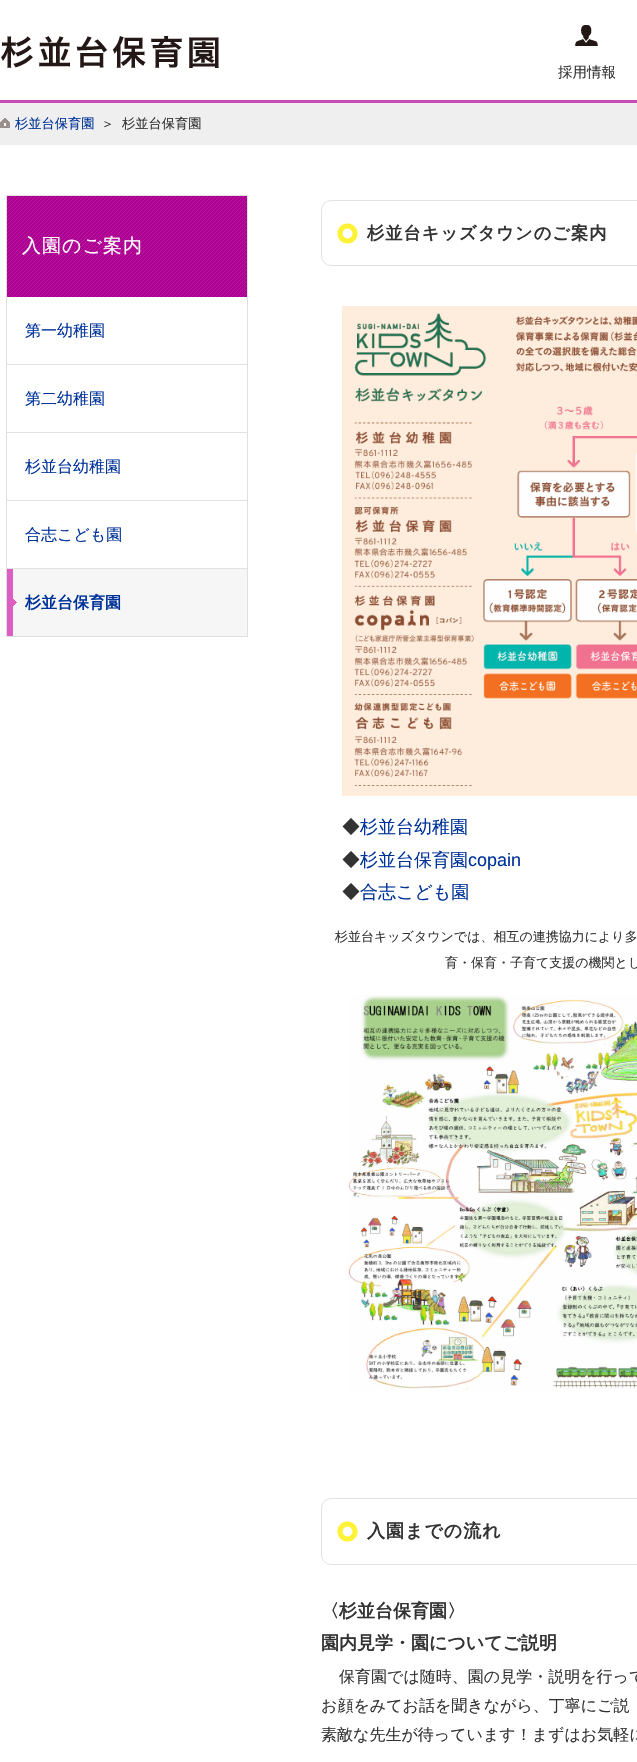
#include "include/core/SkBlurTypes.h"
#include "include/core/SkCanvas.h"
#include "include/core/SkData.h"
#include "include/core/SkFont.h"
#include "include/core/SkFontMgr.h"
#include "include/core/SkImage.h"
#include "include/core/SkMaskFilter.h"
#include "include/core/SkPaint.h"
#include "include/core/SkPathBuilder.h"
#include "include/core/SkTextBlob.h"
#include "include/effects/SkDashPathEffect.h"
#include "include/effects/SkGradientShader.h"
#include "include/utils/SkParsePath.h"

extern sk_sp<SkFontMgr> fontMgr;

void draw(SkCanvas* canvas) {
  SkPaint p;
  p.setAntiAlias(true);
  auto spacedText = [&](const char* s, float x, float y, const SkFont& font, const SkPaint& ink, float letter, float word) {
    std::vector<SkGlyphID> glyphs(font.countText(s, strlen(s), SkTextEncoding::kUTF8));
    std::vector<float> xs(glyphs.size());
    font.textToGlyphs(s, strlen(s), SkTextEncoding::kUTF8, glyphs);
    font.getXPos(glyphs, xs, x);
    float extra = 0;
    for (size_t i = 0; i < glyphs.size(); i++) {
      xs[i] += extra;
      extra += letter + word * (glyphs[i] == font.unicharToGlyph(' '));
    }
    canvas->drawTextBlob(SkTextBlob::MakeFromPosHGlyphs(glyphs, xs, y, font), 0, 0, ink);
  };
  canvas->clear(SK_ColorWHITE);
  canvas->drawImageRect(SkImages::DeferredFromEncodedData(SkData::MakeFromFileName("images/1.png")), SkRect::MakeLTRB(1, 36, 219, 68), SkSamplingOptions());
  canvas->drawImageRect(SkImages::DeferredFromEncodedData(SkData::MakeFromFileName("images/2.png")), SkRect::MakeLTRB(575, 25, 598, 46), SkSamplingOptions());
  p.setColor(SkColorSetRGB(239, 239, 239));
  canvas->drawRect(SkRect::MakeLTRB(0, 103, 637, 145), p);
  p.setColor(SkColorSetRGB(198, 77, 179));
  canvas->drawRect(SkRect::MakeLTRB(0, 100, 637, 103), p);
  canvas->drawImageRect(SkImages::DeferredFromEncodedData(SkData::MakeFromFileName("images/3.png")), SkRect::MakeLTRB(0, 118, 10, 128), SkSamplingOptions());
  p.setStyle(SkPaint::kStroke_Style);
  p.setStrokeWidth(1);
  p.setColor(SkColorSetRGB(223, 223, 223));
  canvas->drawRect(SkRect::MakeLTRB(6.5f, 195.5f, 247.5f, 636.5f), p);
  canvas->drawImageRect(SkImages::DeferredFromEncodedData(SkData::MakeFromFileName("images/4.png")), SkRect::MakeLTRB(7, 196, 247, 297), SkSamplingOptions());
  p.setStyle(SkPaint::kFill_Style);
  p.setColor(SkColorSetRGB(226, 226, 226));
  canvas->drawRect(SkRect::MakeLTRB(7, 364, 247, 365), p);
  canvas->drawRect(SkRect::MakeLTRB(7, 432, 247, 433), p);
  canvas->drawRect(SkRect::MakeLTRB(7, 500, 247, 501), p);
  canvas->drawRect(SkRect::MakeLTRB(7, 568, 247, 569), p);
  p.setColor(SkColorSetRGB(246, 246, 246));
  canvas->drawRect(SkRect::MakeLTRB(13, 569, 247, 636), p);
  canvas->drawImageRect(SkImages::DeferredFromEncodedData(SkData::MakeFromFileName("images/5.png")), SkRect::MakeLTRB(7, 569, 17, 636), SkSamplingOptions());
  canvas->drawImageRect(SkImages::DeferredFromEncodedData(SkData::MakeFromFileName("images/6.png")), SkRect::MakeLTRB(337, 223, 358, 244), SkSamplingOptions());
  p.setStyle(SkPaint::kStroke_Style);
  p.setColor(SkColorSetRGB(226, 226, 226));
  canvas->drawRoundRect(SkRect::MakeLTRB(321.5f, 200.5f, 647.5f, 265.5f), 9.5f, 9.5f, p);
  canvas->drawImageRect(SkImages::DeferredFromEncodedData(SkData::MakeFromFileName("images/7.png")), SkRect::MakeLTRB(342, 306, 637, 796), SkSamplingOptions());
  canvas->drawImageRect(SkImages::DeferredFromEncodedData(SkData::MakeFromFileName("images/8.png")), SkRect::MakeLTRB(348, 995, 637, 1390), SkSamplingOptions());
  canvas->drawImageRect(SkImages::DeferredFromEncodedData(SkData::MakeFromFileName("images/6.png")), SkRect::MakeLTRB(337, 1521, 358, 1542), SkSamplingOptions());
  canvas->drawRoundRect(SkRect::MakeLTRB(321.5f, 1498.5f, 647.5f, 1564.5f), 9.5f, 9.5f, p);
  SkFont font1(fontMgr->matchFamilyStyle("WenQuanYi Zen Hei", SkFontStyle(500, SkFontStyle::kNormal_Width, SkFontStyle::kUpright_Slant)), 14.5f);
  font1.setSubpixel(true);
  p.setStyle(SkPaint::kFill_Style);
  p.setColor(SkColorSetRGB(51, 51, 51));
  canvas->drawString("採用情報", 558, 77, font1, p);
  SkFont font2(fontMgr->matchFamilyStyle("WenQuanYi Zen Hei", SkFontStyle(500, SkFontStyle::kNormal_Width, SkFontStyle::kUpright_Slant)), 13.25f);
  font2.setSubpixel(true);
  p.setColor(SkColorSetRGB(0, 51, 153));
  canvas->drawString("杉並台保育園", 15, 128, font2, p);
  p.setColor(SkColorSetRGB(51, 51, 51));
  canvas->drawString("＞", 101, 128, font2, p);
  canvas->drawString("杉並台保育園", 122, 128, font2, p);
  SkFont font3(fontMgr->matchFamilyStyle("WenQuanYi Zen Hei", SkFontStyle(500, SkFontStyle::kNormal_Width, SkFontStyle::kUpright_Slant)), 19);
  font3.setSubpixel(true);
  p.setColor(SK_ColorWHITE);
  spacedText("入園のご案内", 22, 252, font3, p, 1, 0);
  SkFont font4(fontMgr->matchFamilyStyle("WenQuanYi Zen Hei", SkFontStyle(500, SkFontStyle::kNormal_Width, SkFontStyle::kUpright_Slant)), 16);
  font4.setSubpixel(true);
  p.setColor(SkColorSetRGB(0, 51, 153));
  canvas->drawString("第一幼稚園", 25, 336, font4, p);
  canvas->drawString("第二幼稚園", 25, 404, font4, p);
  canvas->drawString("杉並台幼稚園", 25, 472, font4, p);
  canvas->drawString("合志こども園", 25, 540, font4, p);
  SkFont font5(fontMgr->matchFamilyStyle("WenQuanYi Zen Hei", SkFontStyle::Bold()), 16);
  font5.setSubpixel(true);
  canvas->drawString("杉並台保育園", 25, 608, font5, p);
  SkFont font6(fontMgr->matchFamilyStyle("WenQuanYi Zen Hei", SkFontStyle::Bold()), 17.25f);
  font6.setSubpixel(true);
  p.setColor(SkColorSetRGB(51, 51, 51));
  spacedText("杉並台キッズタウンのご案内", 367, 239, font6, p, 1, 0);
  SkFont font7(fontMgr->matchFamilyStyle("WenQuanYi Zen Hei", SkFontStyle(500, SkFontStyle::kNormal_Width, SkFontStyle::kUpright_Slant)), 18);
  font7.setSubpixel(true);
  canvas->drawString("◆", 342, 833, font7, p);
  p.setColor(SkColorSetRGB(0, 51, 153));
  canvas->drawString("杉並台幼稚園", 360, 833, font7, p);
  p.setColor(SkColorSetRGB(51, 51, 51));
  canvas->drawString("◆", 342, 866, font7, p);
  p.setColor(SkColorSetRGB(0, 51, 153));
  canvas->drawString("杉並台保育園", 360, 866, font7, p);
  SkFont font8(fontMgr->matchFamilyStyle("Liberation Sans", SkFontStyle::Normal()), 18);
  font8.setSubpixel(true);
  canvas->drawString("copain", 468, 866, font8, p);
  p.setColor(SkColorSetRGB(51, 51, 51));
  canvas->drawString("◆", 342, 898, font7, p);
  p.setColor(SkColorSetRGB(0, 51, 153));
  canvas->drawString("合志こども園", 360, 898, font7, p);
  SkFont font9(fontMgr->matchFamilyStyle("WenQuanYi Zen Hei", SkFontStyle(500, SkFontStyle::kNormal_Width, SkFontStyle::kUpright_Slant)), 13);
  font9.setSubpixel(true);
  p.setColor(SkColorSetRGB(51, 51, 51));
  canvas->drawString("杉並台キッズタウンでは、相互の連携協力により多", 335, 941, font9, p);
  canvas->drawString("育・保育・子育て支援の機関とし", 445, 967, font9, p);
  SkFont font10(fontMgr->matchFamilyStyle("WenQuanYi Zen Hei", SkFontStyle::Bold()), 18);
  font10.setSubpixel(true);
  spacedText("入園までの流れ", 367, 1537, font10, p, 1, 0);
  canvas->drawString("〈杉並台保育園〉", 321, 1617, font10, p);
  canvas->drawString("園内見学・園についてご説明", 321, 1649, font10, p);
  canvas->drawString("保育園では随時、園の見学・説明を行って", 339, 1682, font4, p);
  canvas->drawString("お顔をみてお話を聞きながら、丁寧にご説", 321, 1711, font4, p);
  canvas->drawString("素敵な先生が待っています！まずはお気軽に", 321, 1740, font4, p);
}
